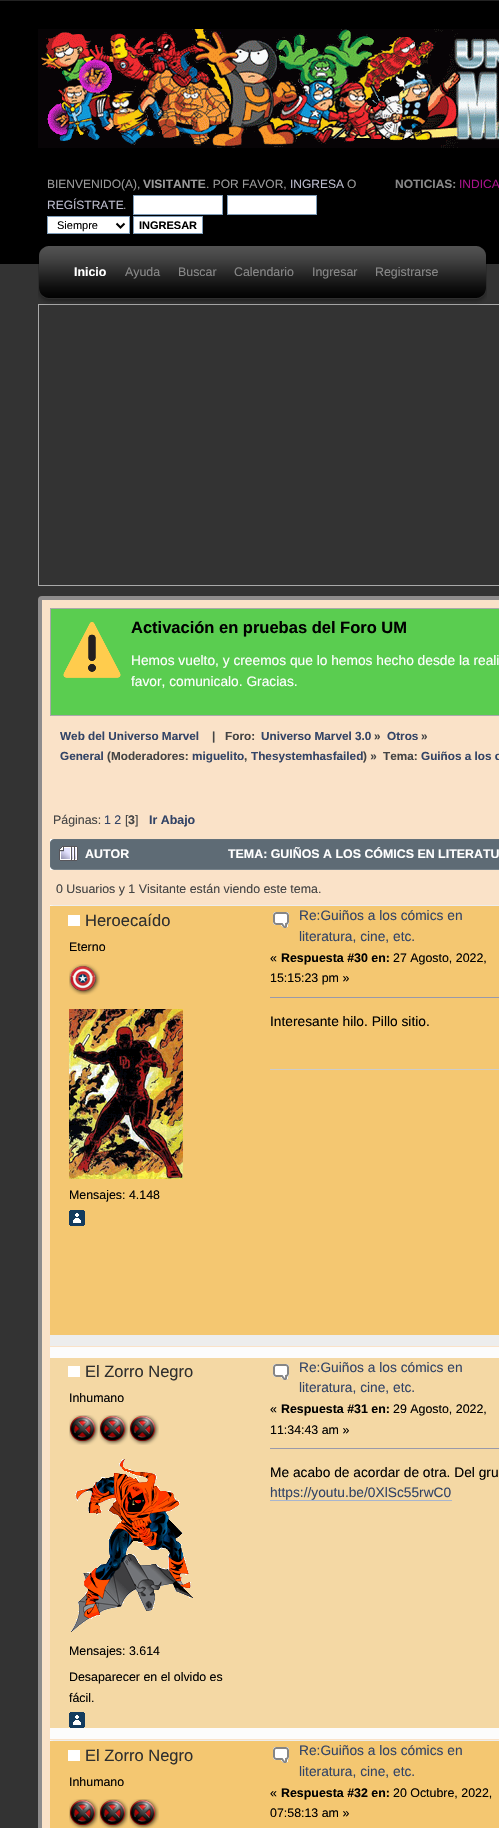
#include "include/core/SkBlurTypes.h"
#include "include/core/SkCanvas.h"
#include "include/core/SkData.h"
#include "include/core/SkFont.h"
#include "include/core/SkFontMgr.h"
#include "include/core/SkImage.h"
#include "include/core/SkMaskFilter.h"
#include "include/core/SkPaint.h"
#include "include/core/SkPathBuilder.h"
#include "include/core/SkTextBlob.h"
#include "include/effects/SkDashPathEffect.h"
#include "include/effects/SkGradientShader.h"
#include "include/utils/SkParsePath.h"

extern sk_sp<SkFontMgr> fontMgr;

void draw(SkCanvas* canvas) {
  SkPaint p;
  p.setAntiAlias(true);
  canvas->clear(SK_ColorBLACK);
  p.setColor(SkColorSetRGB(34, 34, 34));
  canvas->drawRect(SkRect::MakeLTRB(0, 0, 499, 1), p);
  canvas->drawImageRect(SkImages::DeferredFromEncodedData(SkData::MakeFromFileName("images/1.png")), SkRect::MakeLTRB(38, 29, 499, 148), SkSamplingOptions());
  p.setColor(SK_ColorWHITE);
  canvas->drawRect(SkRect::MakeLTRB(133.5f, 195.5f, 222.5f, 214.5f), p);
  p.setStyle(SkPaint::kStroke_Style);
  p.setStrokeWidth(1);
  p.setColor(SkColorSetRGB(127, 157, 185));
  canvas->drawRect(SkRect::MakeLTRB(133.5f, 195.5f, 222.5f, 214.5f), p);
  p.setStyle(SkPaint::kFill_Style);
  p.setColor(SK_ColorWHITE);
  canvas->drawRect(SkRect::MakeLTRB(227.5f, 195.5f, 316.5f, 214.5f), p);
  p.setStyle(SkPaint::kStroke_Style);
  p.setColor(SkColorSetRGB(127, 157, 185));
  canvas->drawRect(SkRect::MakeLTRB(227.5f, 195.5f, 316.5f, 214.5f), p);
  p.setStyle(SkPaint::kFill_Style);
  p.setColor(SK_ColorWHITE);
  canvas->drawRect(SkRect::MakeLTRB(47.5f, 216.5f, 129.5f, 233.5f), p);
  p.setStyle(SkPaint::kStroke_Style);
  p.setColor(SkColorSetRGB(127, 157, 185));
  canvas->drawRect(SkRect::MakeLTRB(47.5f, 216.5f, 129.5f, 233.5f), p);
  p.setStrokeWidth(2);
  p.setColor(SK_ColorBLACK);
  canvas->drawPath(SkPathBuilder().moveTo(116.5f, 223.5f).lineTo(120.5f, 227.5f).lineTo(124.5f, 223.5f).detach(), p);
  p.setStyle(SkPaint::kFill_Style);
  p.setColor(SK_ColorWHITE);
  canvas->drawRect(SkRect::MakeLTRB(133.5f, 216.5f, 202.5f, 233.5f), p);
  p.setStyle(SkPaint::kStroke_Style);
  p.setStrokeWidth(1);
  p.setColor(SkColorSetRGB(127, 157, 185));
  canvas->drawRect(SkRect::MakeLTRB(133.5f, 216.5f, 202.5f, 233.5f), p);
  p.setStyle(SkPaint::kFill_Style);
  p.setColor(SkColorSetRGB(51, 51, 51));
  canvas->drawRect(SkRect::MakeLTRB(0, 264, 499, 1828), p);
  p.setStyle(SkPaint::kStroke_Style);
  p.setColor(SkColorSetRGB(169, 169, 169));
  canvas->drawRect(SkRect::MakeLTRB(38.5f, 304.5f, 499.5f, 585.5f), p);
  canvas->drawImageRect(SkImages::DeferredFromEncodedData(SkData::MakeFromFileName("images/2.png")), SkRect::MakeLTRB(458, 246, 487, 305), SkSamplingOptions());
  canvas->drawImageRect(SkImages::DeferredFromEncodedData(SkData::MakeFromFileName("images/3.png")), SkRect::MakeLTRB(38, 246, 64, 305), SkSamplingOptions());
  canvas->drawImageRect(SkImages::DeferredFromEncodedData(SkData::MakeFromFileName("images/4.png")), SkRect::MakeLTRB(64, 246, 458, 305), SkSamplingOptions());
  p.setStyle(SkPaint::kFill_Style);
  p.setColor(SkColorSetRGB(250, 226, 200));
  canvas->drawRoundRect(SkRect::MakeLTRB(40, 598, 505, 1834), 2, 2, p);
  p.setStyle(SkPaint::kStroke_Style);
  p.setStrokeWidth(4);
  p.setColor(SkColorSetRGB(142, 140, 140));
  canvas->drawRoundRect(SkRect::MakeLTRB(40, 598, 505, 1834), 2, 2, p);
  p.setStyle(SkPaint::kFill_Style);
  p.setColor(SkColorSetRGB(90, 205, 80));
  canvas->drawRect(SkRect::MakeLTRB(51, 609, 499, 715), p);
  canvas->drawImageRect(SkImages::DeferredFromEncodedData(SkData::MakeFromFileName("images/5.png")), SkRect::MakeLTRB(63, 622, 121, 678), SkSamplingOptions());
  p.setStyle(SkPaint::kStroke_Style);
  p.setStrokeWidth(1);
  p.setColor(SkColorSetRGB(169, 169, 169));
  canvas->drawRect(SkRect::MakeLTRB(50.5f, 608.5f, 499.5f, 715.5f), p);
  canvas->drawImageRect(SkImages::DeferredFromEncodedData(SkData::MakeFromFileName("images/6.png")), SkRect::MakeLTRB(50, 839, 499, 870), SkSamplingOptions());
  canvas->drawImageRect(SkImages::DeferredFromEncodedData(SkData::MakeFromFileName("images/7.png")), SkRect::MakeLTRB(59, 846, 78, 861), SkSamplingOptions());
  p.setStyle(SkPaint::kFill_Style);
  p.setColor(SkColorSetRGB(244, 199, 113));
  canvas->drawRect(SkRect::MakeLTRB(50, 906, 499, 1335), p);
  canvas->drawImageRect(SkImages::DeferredFromEncodedData(SkData::MakeFromFileName("images/8.png")), SkRect::MakeLTRB(50, 905, 499, 906), SkSamplingOptions());
  p.setColor(SK_ColorWHITE);
  canvas->drawRect(SkRect::MakeLTRB(68, 915, 80, 926), p);
  canvas->drawImageRect(SkImages::DeferredFromEncodedData(SkData::MakeFromFileName("images/9.png")), SkRect::MakeLTRB(69, 964, 100, 995), SkSamplingOptions());
  canvas->drawImageRect(SkImages::DeferredFromEncodedData(SkData::MakeFromFileName("images/10.png")), SkRect::MakeLTRB(69, 1009, 183, 1179), SkSamplingOptions());
  canvas->drawImageRect(SkImages::DeferredFromEncodedData(SkData::MakeFromFileName("images/11.png")), SkRect::MakeLTRB(69, 1210, 85, 1226), SkSamplingOptions());
  canvas->drawImageRect(SkImages::DeferredFromEncodedData(SkData::MakeFromFileName("images/12.png")), SkRect::MakeLTRB(273, 912, 289, 928), SkSamplingOptions());
  p.setColor(SkColorSetRGB(153, 153, 170));
  canvas->drawRect(SkRect::MakeLTRB(270, 997, 499, 998), p);
  p.setColor(SkColorSetRGB(204, 204, 204));
  canvas->drawRect(SkRect::MakeLTRB(270, 1069, 499, 1070), p);
  p.setColor(SkColorSetRGB(237, 237, 237));
  canvas->drawRect(SkRect::MakeLTRB(50, 1335, 499, 1346), p);
  p.setColor(SkColorSetRGB(244, 216, 164));
  canvas->drawRect(SkRect::MakeLTRB(50, 1358, 499, 1728), p);
  p.setColor(SkColorSetRGB(252, 252, 252));
  canvas->drawRect(SkRect::MakeLTRB(50, 1347, 499, 1358), p);
  p.setColor(SK_ColorWHITE);
  canvas->drawRect(SkRect::MakeLTRB(68, 1366, 80, 1377), p);
  canvas->drawImageRect(SkImages::DeferredFromEncodedData(SkData::MakeFromFileName("images/13.png")), SkRect::MakeLTRB(69, 1415, 99, 1445), SkSamplingOptions());
  canvas->drawImageRect(SkImages::DeferredFromEncodedData(SkData::MakeFromFileName("images/13.png")), SkRect::MakeLTRB(99, 1415, 129, 1445), SkSamplingOptions());
  canvas->drawImageRect(SkImages::DeferredFromEncodedData(SkData::MakeFromFileName("images/13.png")), SkRect::MakeLTRB(129, 1415, 159, 1445), SkSamplingOptions());
  canvas->drawImageRect(SkImages::DeferredFromEncodedData(SkData::MakeFromFileName("images/14.png")), SkRect::MakeLTRB(71, 1459, 193, 1632), SkSamplingOptions());
  canvas->drawImageRect(SkImages::DeferredFromEncodedData(SkData::MakeFromFileName("images/15.png")), SkRect::MakeLTRB(69, 1712, 85, 1728), SkSamplingOptions());
  canvas->drawImageRect(SkImages::DeferredFromEncodedData(SkData::MakeFromFileName("images/16.png")), SkRect::MakeLTRB(273, 1364, 289, 1380), SkSamplingOptions());
  p.setColor(SkColorSetRGB(153, 153, 170));
  canvas->drawRect(SkRect::MakeLTRB(270, 1448, 499, 1449), p);
  p.setColor(SkColorSetRGB(168, 182, 207));
  canvas->drawRect(SkRect::MakeLTRB(270, 1500, 452, 1501), p);
  p.setColor(SkColorSetRGB(252, 252, 252));
  canvas->drawRect(SkRect::MakeLTRB(50, 1728, 499, 1739), p);
  p.setColor(SkColorSetRGB(244, 199, 113));
  canvas->drawRect(SkRect::MakeLTRB(50, 1741, 499, 1828), p);
  canvas->drawImageRect(SkImages::DeferredFromEncodedData(SkData::MakeFromFileName("images/8.png")), SkRect::MakeLTRB(50, 1740, 499, 1741), SkSamplingOptions());
  p.setColor(SK_ColorWHITE);
  canvas->drawRect(SkRect::MakeLTRB(68, 1750, 80, 1761), p);
  canvas->drawImageRect(SkImages::DeferredFromEncodedData(SkData::MakeFromFileName("images/17.png")), SkRect::MakeLTRB(69, 1799, 99, 1828), SkSamplingOptions());
  canvas->drawImageRect(SkImages::DeferredFromEncodedData(SkData::MakeFromFileName("images/17.png")), SkRect::MakeLTRB(99, 1799, 129, 1828), SkSamplingOptions());
  canvas->drawImageRect(SkImages::DeferredFromEncodedData(SkData::MakeFromFileName("images/17.png")), SkRect::MakeLTRB(129, 1799, 159, 1828), SkSamplingOptions());
  canvas->drawImageRect(SkImages::DeferredFromEncodedData(SkData::MakeFromFileName("images/12.png")), SkRect::MakeLTRB(273, 1747, 289, 1763), SkSamplingOptions());
  SkFont font1(fontMgr->matchFamilyStyle("Liberation Sans", SkFontStyle::Normal()), 12);
  font1.setSubpixel(true);
  p.setColor(SkColorSetRGB(153, 153, 153));
  canvas->drawString("BIENVENIDO(A),", 47, 188, font1, p);
  SkFont font2(fontMgr->matchFamilyStyle("Liberation Sans", SkFontStyle::Bold()), 12);
  font2.setSubpixel(true);
  canvas->drawString("VISITANTE", 143, 188, font2, p);
  canvas->drawString(". POR FAVOR,", 206, 188, font1, p);
  p.setColor(SkColorSetRGB(187, 187, 204));
  canvas->drawString("INGRESA", 290, 188, font1, p);
  p.setColor(SkColorSetRGB(153, 153, 153));
  canvas->drawString("O", 347, 188, font1, p);
  p.setColor(SkColorSetRGB(187, 187, 204));
  canvas->drawString("REGÍSTRATE", 47, 209, font1, p);
  p.setColor(SkColorSetRGB(153, 153, 153));
  canvas->drawString(".", 123, 209, font1, p);
  SkFont font3(fontMgr->matchFamilyStyle("Liberation Sans", SkFontStyle::Normal()), 11);
  font3.setSubpixel(true);
  p.setColor(SK_ColorBLACK);
  canvas->drawString("Siempre", 57, 229, font3, p);
  SkFont font4(fontMgr->matchFamilyStyle("Liberation Sans", SkFontStyle::Bold()), 11);
  font4.setSubpixel(true);
  canvas->drawString("INGRESAR", 139, 229, font4, p);
  p.setColor(SkColorSetRGB(136, 136, 136));
  canvas->drawString("NOTICIAS:", 395, 188, font2, p);
  p.setColor(SkColorSetRGB(166, 18, 136));
  canvas->drawString("INDICA", 459, 188, font1, p);
  SkFont font5(fontMgr->matchFamilyStyle("Liberation Sans", SkFontStyle::Bold()), 12.4f);
  font5.setSubpixel(true);
  p.setColor(SK_ColorWHITE);
  canvas->drawString("Inicio", 74, 276, font5, p);
  SkFont font6(fontMgr->matchFamilyStyle("Liberation Sans", SkFontStyle::Normal()), 12.4f);
  font6.setSubpixel(true);
  p.setColor(SkColorSetRGB(136, 136, 136));
  canvas->drawString("Ayuda", 125, 276, font6, p);
  canvas->drawString("Buscar", 178, 276, font6, p);
  canvas->drawString("Calendario", 234, 276, font6, p);
  canvas->drawString("Ingresar", 312, 276, font6, p);
  canvas->drawString("Registrarse", 375, 276, font6, p);
  SkFont font7(fontMgr->matchFamilyStyle("Liberation Sans", SkFontStyle::Bold()), 16.5f);
  font7.setSubpixel(true);
  p.setColor(SK_ColorBLACK);
  canvas->drawString("Activación en pruebas del Foro UM", 131, 633, font7, p);
  SkFont font8(fontMgr->matchFamilyStyle("Liberation Sans", SkFontStyle::Normal()), 13.75f);
  font8.setSubpixel(true);
  p.setColor(SK_ColorWHITE);
  canvas->drawString("Hemos vuelto, y creemos que lo hemos hecho desde la reali", 131, 665, font8, p);
  canvas->drawString("favor, comunicalo. Gracias.", 131, 686, font8, p);
  SkFont font9(fontMgr->matchFamilyStyle("Liberation Sans", SkFontStyle::Bold()), 11.75f);
  font9.setSubpixel(true);
  p.setColor(SkColorSetRGB(51, 68, 102));
  canvas->drawString("Web del Universo Marvel", 60, 740, font9, p);
  p.setColor(SkColorSetRGB(68, 68, 68));
  canvas->drawString("|   Foro:", 212, 740, font9, p);
  p.setColor(SkColorSetRGB(51, 68, 102));
  canvas->drawString("Universo Marvel 3.0", 261, 740, font9, p);
  p.setColor(SkColorSetRGB(68, 68, 68));
  canvas->drawString("»", 374, 740, font9, p);
  p.setColor(SkColorSetRGB(51, 68, 102));
  canvas->drawString("Otros", 387, 740, font9, p);
  p.setColor(SkColorSetRGB(68, 68, 68));
  canvas->drawString("»", 421, 740, font9, p);
  p.setColor(SkColorSetRGB(51, 68, 102));
  canvas->drawString("General", 60, 760, font9, p);
  p.setColor(SkColorSetRGB(68, 68, 68));
  canvas->drawString("(Moderadores:", 107, 760, font9, p);
  p.setColor(SkColorSetRGB(51, 68, 102));
  canvas->drawString("miguelito", 192, 760, font9, p);
  p.setColor(SkColorSetRGB(68, 68, 68));
  canvas->drawString(",", 244, 760, font9, p);
  p.setColor(SkColorSetRGB(51, 68, 102));
  canvas->drawString("Thesystemhasfailed", 251, 760, font9, p);
  p.setColor(SkColorSetRGB(68, 68, 68));
  canvas->drawString(") »", 363, 760, font9, p);
  canvas->drawString("Tema:", 383, 760, font9, p);
  p.setColor(SkColorSetRGB(51, 68, 102));
  canvas->drawString("Guiños a los c", 421, 760, font9, p);
  p.setColor(SkColorSetRGB(68, 68, 68));
  canvas->drawString("Páginas:", 53, 824, font6, p);
  p.setColor(SkColorSetRGB(51, 68, 102));
  canvas->drawString("1 2", 104, 824, font6, p);
  p.setColor(SkColorSetRGB(68, 68, 68));
  canvas->drawString("[", 125, 824, font6, p);
  canvas->drawString("3", 128, 824, font5, p);
  canvas->drawString("]", 135, 824, font6, p);
  p.setColor(SkColorSetRGB(51, 68, 102));
  canvas->drawString("Ir Abajo", 149, 824, font5, p);
  p.setColor(SK_ColorWHITE);
  canvas->drawString("AUTOR", 85, 858, font5, p);
  canvas->drawString("TEMA: GUIÑOS A LOS CÓMICS EN LITERATU", 228, 858, font5, p);
  p.setColor(SkColorSetRGB(68, 68, 68));
  canvas->drawString("0 Usuarios y 1 Visitante están viendo este tema.", 56, 893, font6, p);
  SkFont font10(fontMgr->matchFamilyStyle("Liberation Sans", SkFontStyle::Normal()), 16.5f);
  font10.setSubpixel(true);
  p.setColor(SkColorSetRGB(47, 47, 46));
  canvas->drawString("Heroecaído", 85, 926, font10, p);
  p.setColor(SK_ColorBLACK);
  canvas->drawString("Eterno", 69, 951, font6, p);
  canvas->drawString("Mensajes: 4.148", 69, 1199, font6, p);
  p.setColor(SkColorSetRGB(51, 68, 102));
  canvas->drawString("Re:Guiños a los cómics en", 299, 920, font8, p);
  canvas->drawString("literatura, cine, etc.", 299, 941, font8, p);
  p.setColor(SK_ColorBLACK);
  canvas->drawString("«", 270, 962, font6, p);
  canvas->drawString("Respuesta #30 en:", 281, 962, font5, p);
  canvas->drawString("27 Agosto, 2022,", 393, 962, font6, p);
  canvas->drawString("15:15:23 pm »", 270, 982, font6, p);
  canvas->drawString("Interesante hilo. Pillo sitio.", 270, 1026, font8, p);
  p.setColor(SkColorSetRGB(47, 47, 46));
  canvas->drawString("El Zorro Negro", 85, 1377, font10, p);
  p.setColor(SK_ColorBLACK);
  canvas->drawString("Inhumano", 69, 1402, font6, p);
  canvas->drawString("Mensajes: 3.614", 69, 1655, font6, p);
  canvas->drawString("Desaparecer en el olvido es", 69, 1681, font6, p);
  canvas->drawString("fácil.", 69, 1702, font6, p);
  p.setColor(SkColorSetRGB(51, 68, 102));
  canvas->drawString("Re:Guiños a los cómics en", 299, 1372, font8, p);
  canvas->drawString("literatura, cine, etc.", 299, 1392, font8, p);
  p.setColor(SK_ColorBLACK);
  canvas->drawString("«", 270, 1413, font6, p);
  canvas->drawString("Respuesta #31 en:", 281, 1413, font5, p);
  canvas->drawString("29 Agosto, 2022,", 393, 1413, font6, p);
  canvas->drawString("11:34:43 am »", 270, 1434, font6, p);
  canvas->drawString("Me acabo de acordar de otra. Del gru", 270, 1477, font8, p);
  p.setColor(SkColorSetRGB(51, 68, 102));
  canvas->drawString("https://youtu.be/0XlSc55rwC0", 270, 1497, font8, p);
  p.setColor(SkColorSetRGB(47, 47, 46));
  canvas->drawString("El Zorro Negro", 85, 1761, font10, p);
  p.setColor(SK_ColorBLACK);
  canvas->drawString("Inhumano", 69, 1786, font6, p);
  p.setColor(SkColorSetRGB(51, 68, 102));
  canvas->drawString("Re:Guiños a los cómics en", 299, 1755, font8, p);
  canvas->drawString("literatura, cine, etc.", 299, 1776, font8, p);
  p.setColor(SK_ColorBLACK);
  canvas->drawString("«", 270, 1797, font6, p);
  canvas->drawString("Respuesta #32 en:", 281, 1797, font5, p);
  canvas->drawString("20 Octubre, 2022,", 393, 1797, font6, p);
  canvas->drawString("07:58:13 am »", 270, 1817, font6, p);
}
